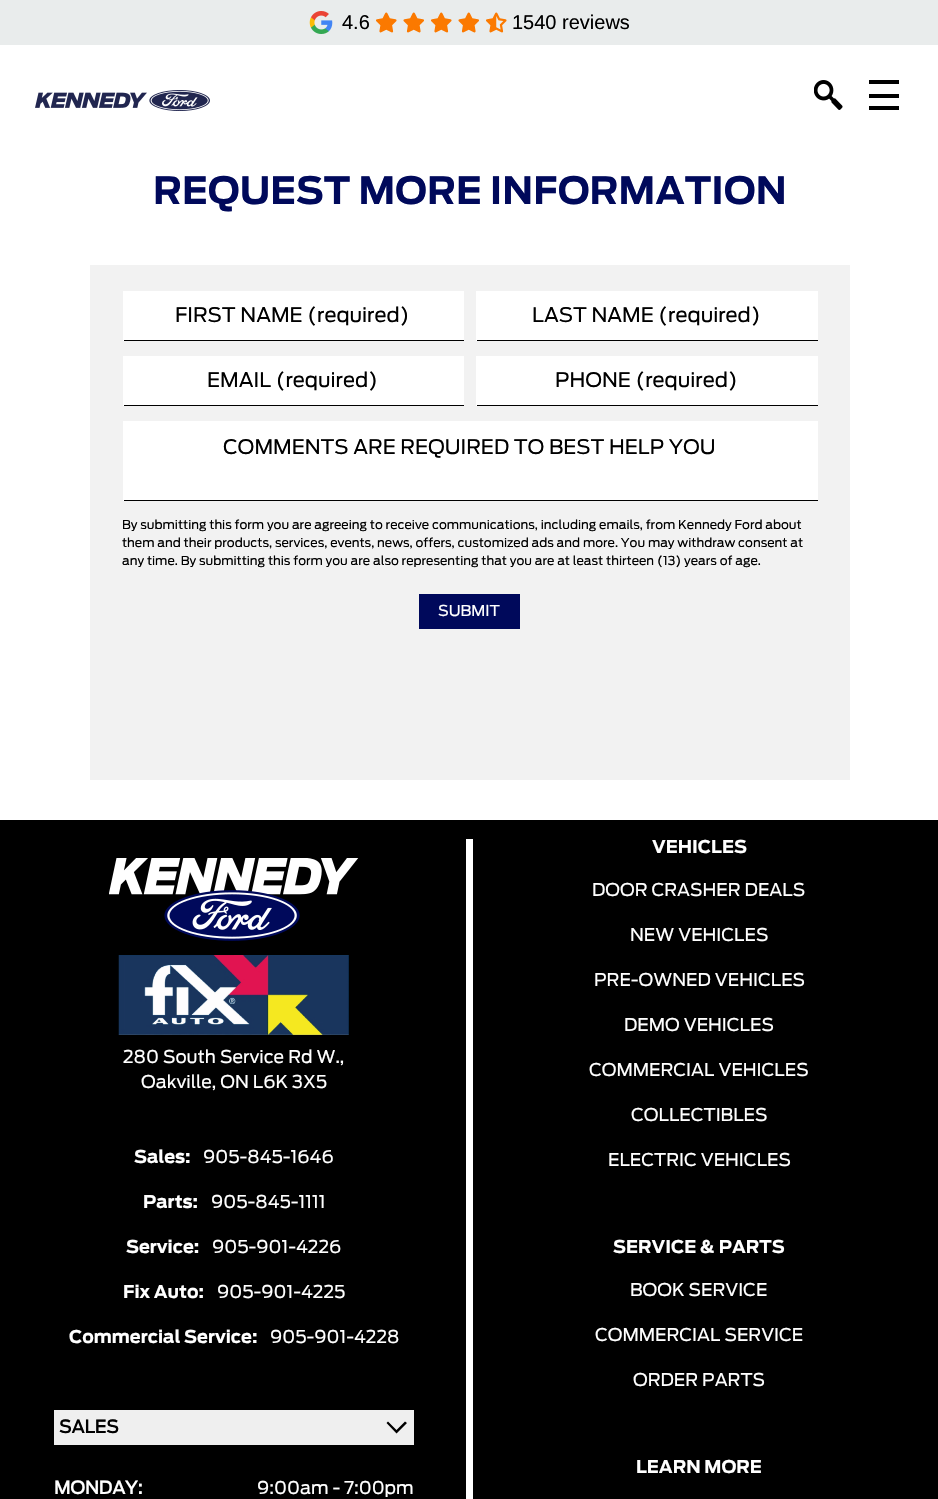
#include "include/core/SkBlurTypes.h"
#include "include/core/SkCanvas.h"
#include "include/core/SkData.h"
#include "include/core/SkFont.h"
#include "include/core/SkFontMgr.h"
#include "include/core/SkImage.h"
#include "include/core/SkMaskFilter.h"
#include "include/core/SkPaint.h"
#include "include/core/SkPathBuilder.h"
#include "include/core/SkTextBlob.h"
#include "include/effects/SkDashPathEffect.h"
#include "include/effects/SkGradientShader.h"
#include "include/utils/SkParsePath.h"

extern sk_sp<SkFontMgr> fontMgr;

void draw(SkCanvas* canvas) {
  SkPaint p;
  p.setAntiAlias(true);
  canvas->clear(SK_ColorWHITE);
  p.setColor(SkColorSetRGB(233, 236, 236));
  canvas->drawRect(SkRect::MakeLTRB(0, 0, 938, 45), p);
  canvas->drawImageRect(SkImages::DeferredFromEncodedData(SkData::MakeFromFileName("images/1.png")), SkRect::MakeLTRB(309, 11, 333, 34), SkSamplingOptions());
  canvas->drawImageRect(SkImages::DeferredFromEncodedData(SkData::MakeFromFileName("images/2.png")), SkRect::MakeLTRB(376, 12, 397, 33), SkSamplingOptions());
  canvas->drawImageRect(SkImages::DeferredFromEncodedData(SkData::MakeFromFileName("images/3.png")), SkRect::MakeLTRB(403, 12, 424, 33), SkSamplingOptions());
  canvas->drawImageRect(SkImages::DeferredFromEncodedData(SkData::MakeFromFileName("images/2.png")), SkRect::MakeLTRB(431, 12, 452, 33), SkSamplingOptions());
  canvas->drawImageRect(SkImages::DeferredFromEncodedData(SkData::MakeFromFileName("images/3.png")), SkRect::MakeLTRB(458, 12, 479, 33), SkSamplingOptions());
  canvas->drawImageRect(SkImages::DeferredFromEncodedData(SkData::MakeFromFileName("images/4.png")), SkRect::MakeLTRB(486, 12, 507, 33), SkSamplingOptions());
  canvas->drawImageRect(SkImages::DeferredFromEncodedData(SkData::MakeFromFileName("images/5.png")), SkRect::MakeLTRB(35, 90, 210, 111), SkSamplingOptions());
  canvas->drawImageRect(SkImages::DeferredFromEncodedData(SkData::MakeFromFileName("images/6.png")), SkRect::MakeLTRB(814, 80, 843, 110), SkSamplingOptions());
  p.setColor(SK_ColorBLACK);
  canvas->drawRect(SkRect::MakeLTRB(869, 80, 899, 84), p);
  canvas->drawRect(SkRect::MakeLTRB(869, 94, 899, 98), p);
  canvas->drawRect(SkRect::MakeLTRB(869, 106, 899, 110), p);
  p.setColor(SkColorSetRGB(242, 242, 242));
  canvas->drawRect(SkRect::MakeLTRB(90, 265, 850, 780), p);
  p.setColor(SK_ColorWHITE);
  canvas->drawRect(SkRect::MakeLTRB(124, 291, 464, 340), p);
  p.setColor(SK_ColorBLACK);
  canvas->drawRect(SkRect::MakeLTRB(123, 340, 464, 341), p);
  p.setColor(SK_ColorWHITE);
  canvas->drawRect(SkRect::MakeLTRB(123, 291, 124, 341), p);
  canvas->drawRect(SkRect::MakeLTRB(477, 291, 818, 340), p);
  p.setColor(SK_ColorBLACK);
  canvas->drawRect(SkRect::MakeLTRB(476, 340, 818, 341), p);
  p.setColor(SK_ColorWHITE);
  canvas->drawRect(SkRect::MakeLTRB(476, 291, 477, 341), p);
  canvas->drawRect(SkRect::MakeLTRB(124, 356, 464, 405), p);
  p.setColor(SK_ColorBLACK);
  canvas->drawRect(SkRect::MakeLTRB(123, 405, 464, 406), p);
  p.setColor(SK_ColorWHITE);
  canvas->drawRect(SkRect::MakeLTRB(123, 356, 124, 406), p);
  canvas->drawRect(SkRect::MakeLTRB(477, 356, 818, 405), p);
  p.setColor(SK_ColorBLACK);
  canvas->drawRect(SkRect::MakeLTRB(476, 405, 818, 406), p);
  p.setColor(SK_ColorWHITE);
  canvas->drawRect(SkRect::MakeLTRB(476, 356, 477, 406), p);
  canvas->drawRect(SkRect::MakeLTRB(124, 421, 818, 500), p);
  p.setColor(SK_ColorBLACK);
  canvas->drawRect(SkRect::MakeLTRB(123, 500, 818, 501), p);
  p.setColor(SK_ColorWHITE);
  canvas->drawRect(SkRect::MakeLTRB(123, 421, 124, 501), p);
  p.setColor(SkColorSetRGB(0, 9, 91));
  canvas->drawRect(SkRect::MakeLTRB(419, 594, 520, 629), p);
  p.setColor(SK_ColorBLACK);
  canvas->drawRect(SkRect::MakeLTRB(0, 820, 938, 1499), p);
  canvas->drawImageRect(SkImages::DeferredFromEncodedData(SkData::MakeFromFileName("images/7.png")), SkRect::MakeLTRB(109, 858, 359, 941), SkSamplingOptions());
  canvas->drawImageRect(SkImages::DeferredFromEncodedData(SkData::MakeFromFileName("images/8.png")), SkRect::MakeLTRB(118, 955, 349, 1035), SkSamplingOptions());
  p.setColor(SK_ColorWHITE);
  canvas->drawRect(SkRect::MakeLTRB(466, 839, 473, 1499), p);
  p.setColor(SkColorSetRGB(239, 239, 239));
  canvas->drawRect(SkRect::MakeLTRB(54, 1410, 414, 1445), p);
  p.setColor(SK_ColorBLACK);
  canvas->drawPath(SkPathBuilder(SkPathFillType::kEvenOdd).moveTo(396.5f, 1433.5f).lineTo(386.5f, 1423).lineTo(388, 1421.5f).lineTo(396.5f, 1430).lineTo(405, 1421.5f).lineTo(407, 1423).close().detach(), p);
  SkFont font1(fontMgr->matchFamilyStyle("Liberation Sans", SkFontStyle::Normal()), 20);
  font1.setSubpixel(true);
  canvas->drawString("4.6", 342, 29, font1, p);
  canvas->drawString("1540 reviews", 512, 29, font1, p);
  SkFont font2(fontMgr->matchFamilyStyle("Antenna", SkFontStyle::Bold()), 37.5f);
  font2.setSubpixel(true);
  p.setColor(SkColorSetRGB(0, 9, 91));
  canvas->drawString("REQUEST MORE INFORMATION", 153, 204, font2, p);
  SkFont font3(fontMgr->matchFamilyStyle("Antenna", SkFontStyle::Normal()), 20);
  font3.setSubpixel(true);
  p.setColor(SK_ColorBLACK);
  canvas->drawString("FIRST NAME (required)", 175, 322, font3, p);
  canvas->drawString("LAST NAME (required)", 532, 322, font3, p);
  canvas->drawString("EMAIL (required)", 207, 387, font3, p);
  canvas->drawString("PHONE (required)", 555, 387, font3, p);
  canvas->drawString("COMMENTS ARE REQUIRED TO BEST HELP YOU", 223, 454, font3, p);
  SkFont font4(fontMgr->matchFamilyStyle("Antenna", SkFontStyle::Normal()), 12.25f);
  font4.setSubpixel(true);
  canvas->drawString("By submitting this form you are agreeing to receive communications, including emails, from Kennedy Ford about", 122, 529, font4, p);
  canvas->drawString("them and their products, services, events, news, offers, customized ads and more. You may withdraw consent at", 122, 547, font4, p);
  canvas->drawString("any time. By submitting this form you are also representing that you are at least thirteen (13) years of age.", 122, 565, font4, p);
  SkFont font5(fontMgr->matchFamilyStyle("Antenna", SkFontStyle::Normal()), 15);
  font5.setSubpixel(true);
  p.setColor(SK_ColorWHITE);
  canvas->drawString("SUBMIT", 438, 616, font5, p);
  SkFont font6(fontMgr->matchFamilyStyle("Antenna", SkFontStyle::Normal()), 17.5f);
  font6.setSubpixel(true);
  canvas->drawString("280 South Service Rd W.,", 123, 1063, font6, p);
  canvas->drawString("Oakville, ON L6K 3X5", 141, 1088, font6, p);
  SkFont font7(fontMgr->matchFamilyStyle("Antenna", SkFontStyle::Bold()), 17.5f);
  font7.setSubpixel(true);
  canvas->drawString("Sales:", 134, 1163, font7, p);
  canvas->drawString("905-845-1646", 203, 1163, font6, p);
  canvas->drawString("Parts:", 143, 1208, font7, p);
  canvas->drawString("905-845-1111", 211, 1208, font6, p);
  canvas->drawString("Service:", 126, 1253, font7, p);
  canvas->drawString("905-901-4226", 212, 1253, font6, p);
  canvas->drawString("Fix Auto:", 123, 1298, font7, p);
  canvas->drawString("905-901-4225", 217, 1298, font6, p);
  canvas->drawString("Commercial Service:", 69, 1343, font7, p);
  canvas->drawString("905-901-4228", 270, 1343, font6, p);
  SkFont font8(fontMgr->matchFamilyStyle("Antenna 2", SkFontStyle::Bold()), 17.5f);
  font8.setSubpixel(true);
  p.setColor(SK_ColorBLACK);
  canvas->drawString("SALES", 59, 1433, font8, p);
  p.setColor(SK_ColorWHITE);
  canvas->drawString("MONDAY:", 54, 1494, font8, p);
  canvas->drawString("9:00am - 7:00pm", 257, 1494, font6, p);
  canvas->drawString("VEHICLES", 652, 853, font7, p);
  canvas->drawString("DOOR CRASHER DEALS", 592, 896, font6, p);
  canvas->drawString("NEW VEHICLES", 630, 941, font6, p);
  canvas->drawString("PRE-OWNED VEHICLES", 594, 986, font6, p);
  canvas->drawString("DEMO VEHICLES", 624, 1031, font6, p);
  canvas->drawString("COMMERCIAL VEHICLES", 589, 1076, font6, p);
  canvas->drawString("COLLECTIBLES", 631, 1121, font6, p);
  canvas->drawString("ELECTRIC VEHICLES", 608, 1166, font6, p);
  canvas->drawString("SERVICE & PARTS", 613, 1253, font7, p);
  canvas->drawString("BOOK SERVICE", 630, 1296, font6, p);
  canvas->drawString("COMMERCIAL SERVICE", 595, 1341, font6, p);
  canvas->drawString("ORDER PARTS", 633, 1386, font6, p);
  canvas->drawString("LEARN MORE", 636, 1473, font7, p);
}
